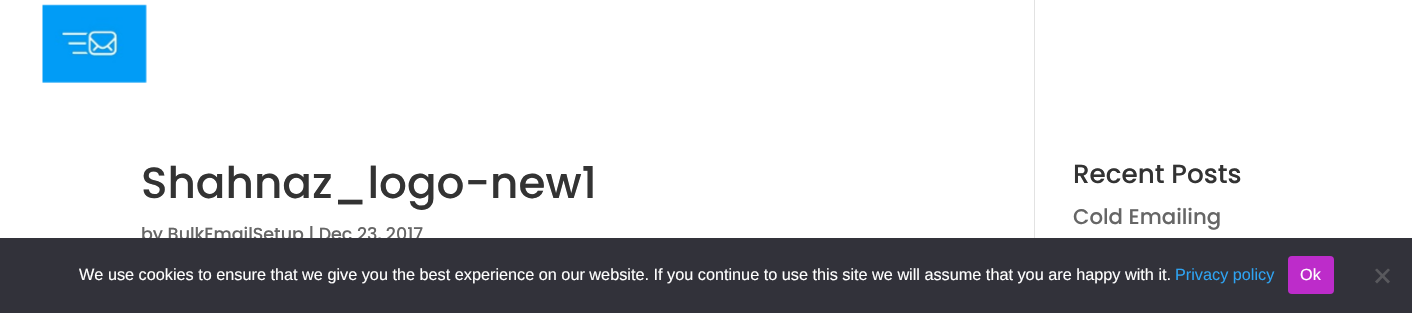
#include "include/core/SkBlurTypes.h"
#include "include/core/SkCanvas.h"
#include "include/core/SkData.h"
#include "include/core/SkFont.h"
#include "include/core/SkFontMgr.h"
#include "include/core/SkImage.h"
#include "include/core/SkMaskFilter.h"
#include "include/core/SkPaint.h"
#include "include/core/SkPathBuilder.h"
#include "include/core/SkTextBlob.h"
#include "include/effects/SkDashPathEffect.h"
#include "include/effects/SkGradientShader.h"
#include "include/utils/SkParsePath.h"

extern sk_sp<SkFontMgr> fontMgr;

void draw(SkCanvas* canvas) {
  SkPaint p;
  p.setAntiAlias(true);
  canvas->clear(SK_ColorWHITE);
  canvas->drawImageRect(SkImages::DeferredFromEncodedData(SkData::MakeFromFileName("images/1.png")), SkRect::MakeLTRB(42, 4, 147, 83), SkSamplingOptions());
  p.setColor(SkColorSetRGB(226, 226, 226));
  canvas->drawRect(SkRect::MakeLTRB(1034, 0, 1035, 238), p);
  SkFont font1(fontMgr->matchFamilyStyle("Poppins", SkFontStyle(500, SkFontStyle::kNormal_Width, SkFontStyle::kUpright_Slant)), 43.75f);
  font1.setSubpixel(true);
  p.setColor(SkColorSetRGB(51, 51, 51));
  canvas->drawString("Shahnaz_logo-new1", 141, 198, font1, p);
  SkFont font2(fontMgr->matchFamilyStyle("Poppins", SkFontStyle(500, SkFontStyle::kNormal_Width, SkFontStyle::kUpright_Slant)), 17.5f);
  font2.setSubpixel(true);
  p.setColor(SkColorSetRGB(102, 102, 102));
  canvas->drawString("by BulkEmailSetup | Dec 23, 2017", 141, 240, font2, p);
  SkFont font3(fontMgr->matchFamilyStyle("Poppins", SkFontStyle(500, SkFontStyle::kNormal_Width, SkFontStyle::kUpright_Slant)), 26.25f);
  font3.setSubpixel(true);
  p.setColor(SkColorSetRGB(51, 51, 51));
  canvas->drawString("Recent Posts", 1073, 183, font3, p);
  SkFont font4(fontMgr->matchFamilyStyle("Poppins", SkFontStyle(500, SkFontStyle::kNormal_Width, SkFontStyle::kUpright_Slant)), 21.25f);
  font4.setSubpixel(true);
  p.setColor(SkColorSetRGB(102, 102, 102));
  canvas->drawString("Cold Emailing", 1073, 224, font4, p);
  p.setColor(SkColorSetRGB(50, 50, 58));
  canvas->drawRect(SkRect::MakeLTRB(0, 238, 1412, 313), p);
  SkFont font5(fontMgr->matchFamilyStyle("Liberation Sans", SkFontStyle::Normal()), 16.25f);
  font5.setSubpixel(true);
  p.setColor(SK_ColorWHITE);
  canvas->drawString("We use cookies to ensure that we give you the best experience on our website. If you continue to use this site we will assume that you are happy with it.", 79, 280, font5, p);
  p.setColor(SkColorSetRGB(46, 163, 242));
  canvas->drawString("Privacy policy", 1175, 280, font5, p);
  p.setColor(SkColorSetRGB(189, 44, 202));
  canvas->drawRoundRect(SkRect::MakeLTRB(1288, 256, 1334, 294), 4, 4, p);
  p.setColor(SK_ColorWHITE);
  canvas->drawString("Ok", 1300, 280, font5, p);
  p.setColor(SkColorSetRGB(89, 89, 93));
  canvas->drawPath(SkPathBuilder().moveTo(1388, 268.5f).lineTo(1390, 270).lineTo(1377, 283.5f).lineTo(1375, 281.5f).close().detach(), p);
  canvas->drawPath(SkPathBuilder().moveTo(1375, 270).lineTo(1377, 268.5f).lineTo(1390, 281.5f).lineTo(1388, 283.5f).close().detach(), p);
}
